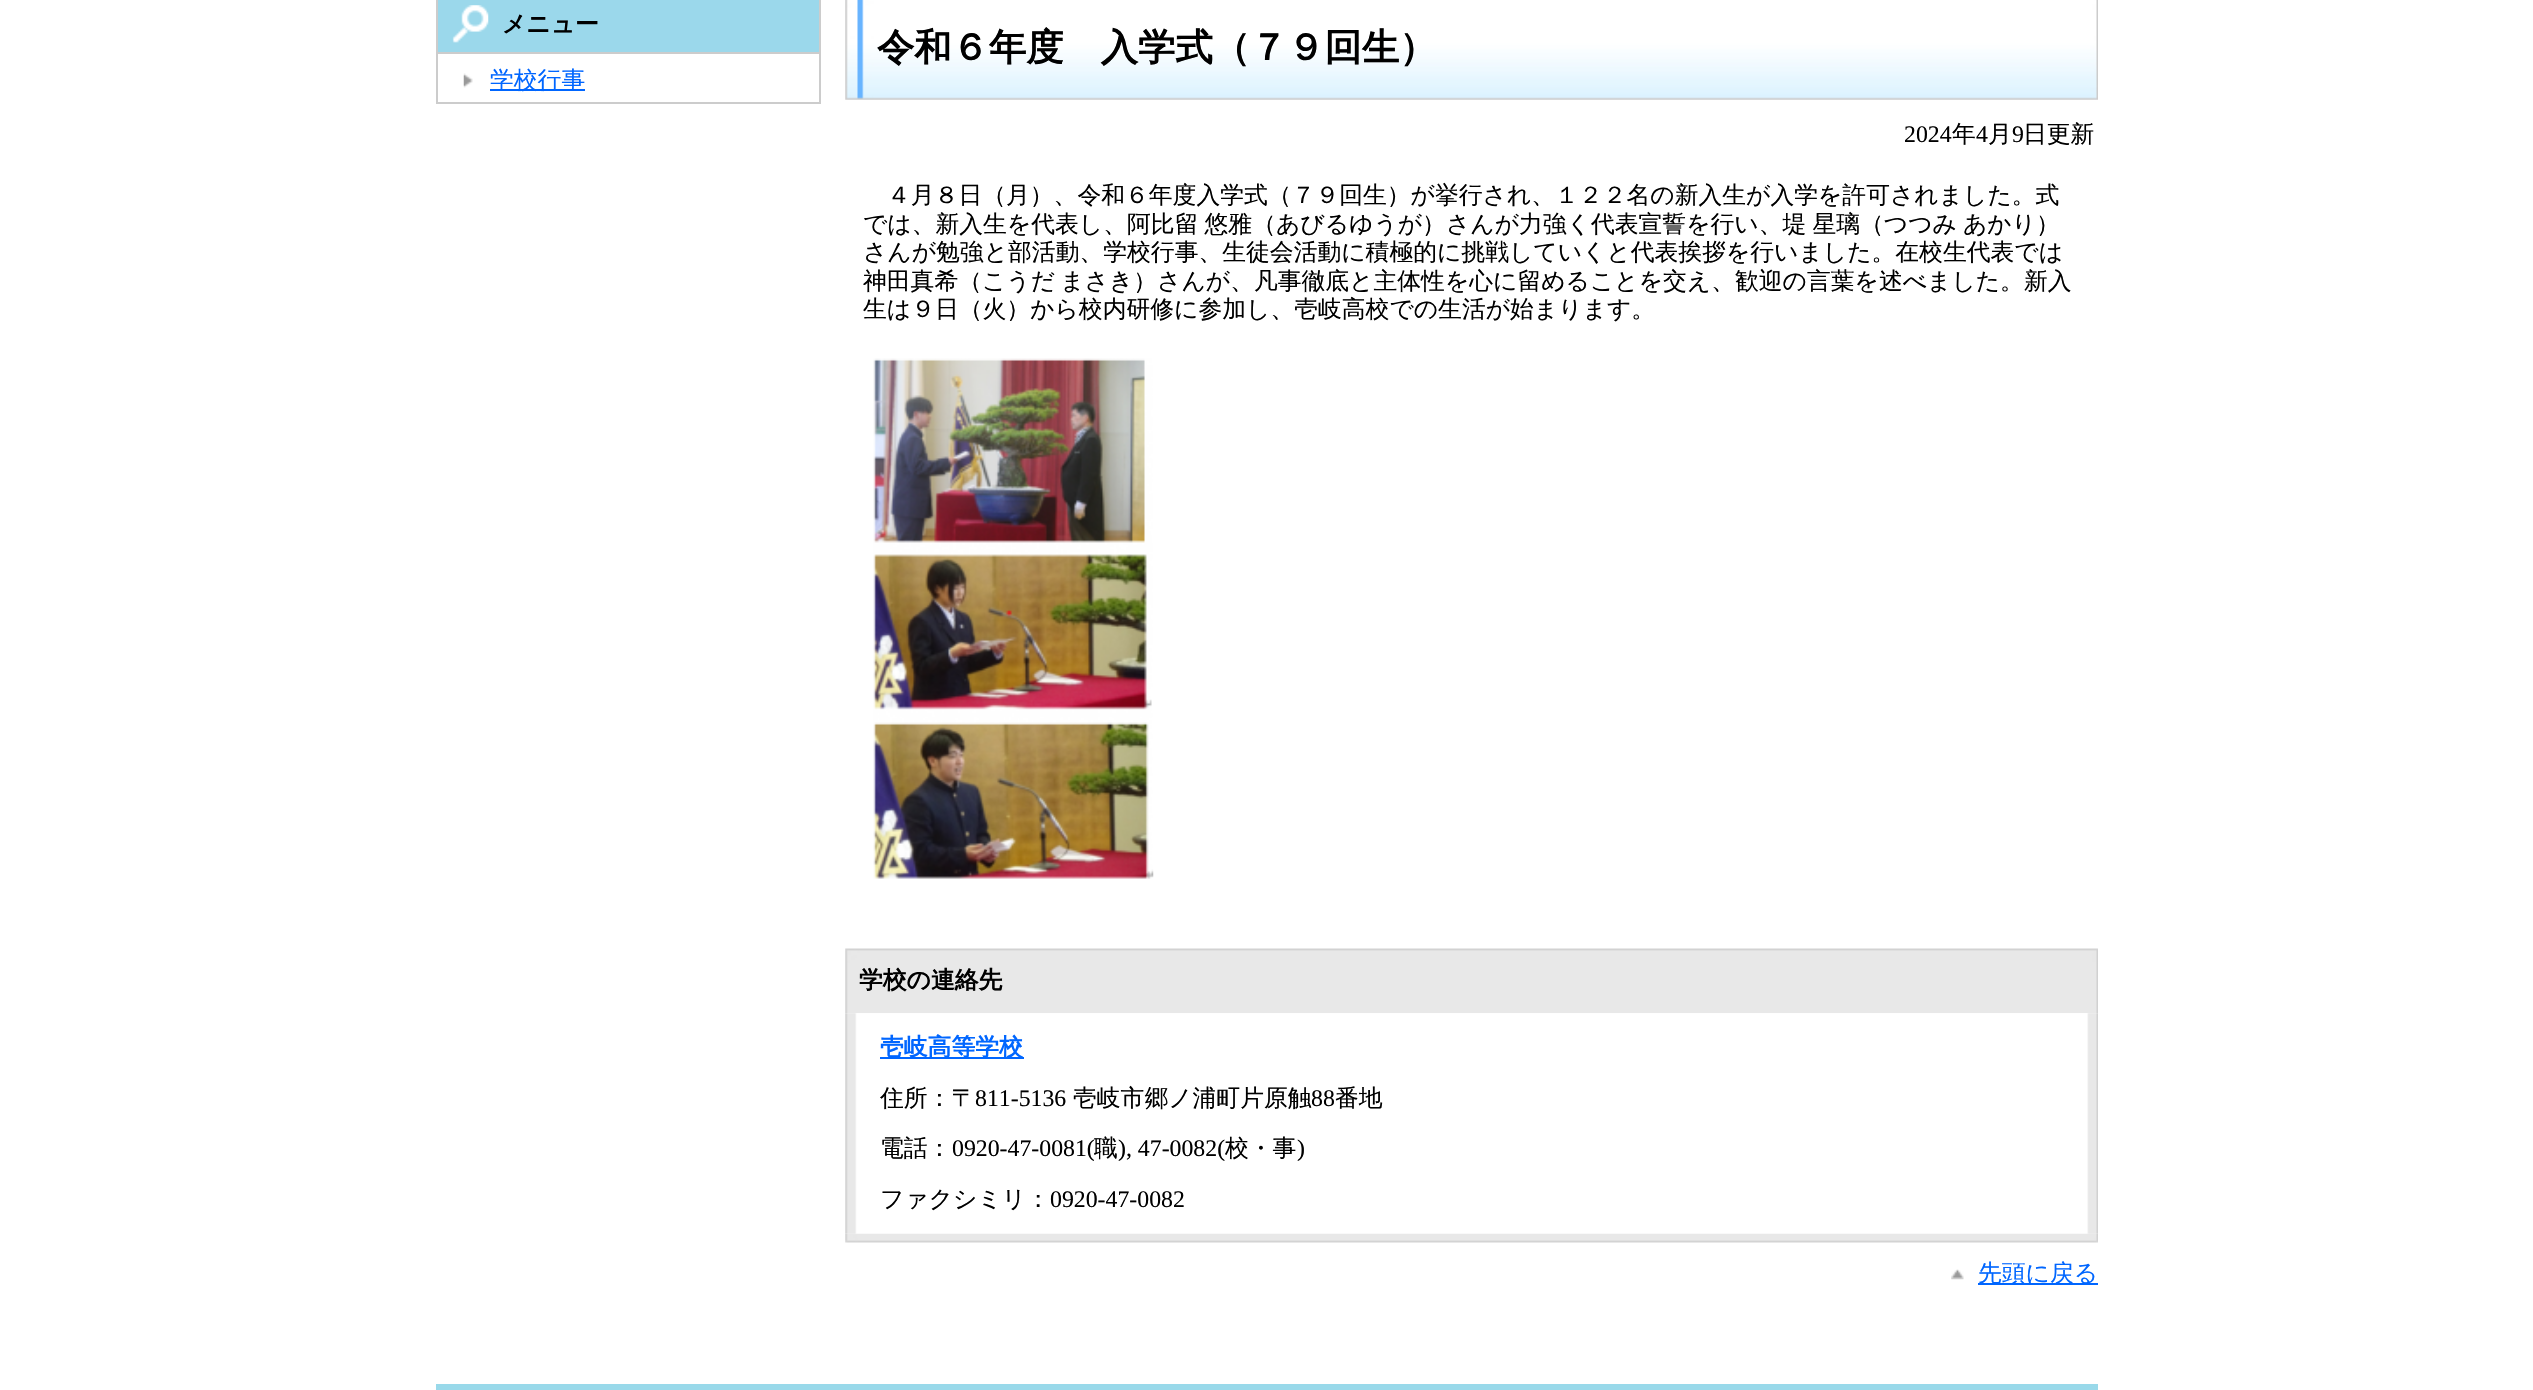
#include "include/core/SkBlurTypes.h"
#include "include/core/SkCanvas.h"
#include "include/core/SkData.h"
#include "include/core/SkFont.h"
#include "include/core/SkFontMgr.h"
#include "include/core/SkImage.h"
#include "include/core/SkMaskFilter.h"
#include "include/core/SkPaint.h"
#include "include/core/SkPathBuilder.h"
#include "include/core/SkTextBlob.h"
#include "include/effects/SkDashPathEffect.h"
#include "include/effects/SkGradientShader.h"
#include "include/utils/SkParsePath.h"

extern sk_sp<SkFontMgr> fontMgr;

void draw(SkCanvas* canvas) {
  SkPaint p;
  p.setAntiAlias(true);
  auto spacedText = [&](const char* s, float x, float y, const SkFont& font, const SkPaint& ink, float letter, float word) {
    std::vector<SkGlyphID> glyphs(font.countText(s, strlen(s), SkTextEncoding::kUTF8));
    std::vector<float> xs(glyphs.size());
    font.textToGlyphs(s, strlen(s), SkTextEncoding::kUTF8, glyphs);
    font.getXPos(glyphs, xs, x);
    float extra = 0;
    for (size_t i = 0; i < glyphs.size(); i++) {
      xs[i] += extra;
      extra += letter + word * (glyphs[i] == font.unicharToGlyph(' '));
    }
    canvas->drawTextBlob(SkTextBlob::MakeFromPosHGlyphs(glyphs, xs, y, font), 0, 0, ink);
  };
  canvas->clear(SK_ColorWHITE);
  p.setColor(SkColorSetRGB(155, 216, 235));
  canvas->drawRect(SkRect::MakeLTRB(437, -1, 820, 53), p);
  p.setStyle(SkPaint::kStroke_Style);
  p.setStrokeWidth(2);
  p.setColor(SkColorSetRGB(204, 204, 204));
  canvas->drawRect(SkRect::MakeLTRB(437, -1, 820, 53), p);
  canvas->drawImageRect(SkImages::DeferredFromEncodedData(SkData::MakeFromFileName("images/1.png")), SkRect::MakeLTRB(452, 5, 489, 43), SkSamplingOptions());
  p.setStyle(SkPaint::kFill_Style);
  canvas->drawRect(SkRect::MakeLTRB(819, 54, 821, 103), p);
  canvas->drawRect(SkRect::MakeLTRB(436, 102, 821, 104), p);
  canvas->drawRect(SkRect::MakeLTRB(436, 54, 438, 103), p);
  canvas->drawImageRect(SkImages::DeferredFromEncodedData(SkData::MakeFromFileName("images/2.png")), SkRect::MakeLTRB(463, 73, 473, 88), SkSamplingOptions());
  p.setColor(SkColorSetRGB(0, 102, 255));
  canvas->drawRect(SkRect::MakeLTRB(490, 89, 585, 91), p);
  canvas->drawImageRect(SkImages::DeferredFromEncodedData(SkData::MakeFromFileName("images/3.png")), SkRect::MakeLTRB(845, 0, 2098, 100), SkSamplingOptions());
  canvas->drawImageRect(SkImages::DeferredFromEncodedData(SkData::MakeFromFileName("images/4.png")), SkRect::MakeLTRB(873, 358, 1154, 879), SkSamplingOptions());
  canvas->drawImageRect(SkImages::DeferredFromEncodedData(SkData::MakeFromFileName("images/5.png")), SkRect::MakeLTRB(845, 948, 2098, 1014), SkSamplingOptions());
  canvas->drawImageRect(SkImages::DeferredFromEncodedData(SkData::MakeFromFileName("images/6.png")), SkRect::MakeLTRB(845, 1013, 2098, 1234), SkSamplingOptions());
  canvas->drawRect(SkRect::MakeLTRB(880, 1057, 1024, 1059), p);
  canvas->drawImageRect(SkImages::DeferredFromEncodedData(SkData::MakeFromFileName("images/7.png")), SkRect::MakeLTRB(845, 1233, 2098, 1243), SkSamplingOptions());
  canvas->drawImageRect(SkImages::DeferredFromEncodedData(SkData::MakeFromFileName("images/8.png")), SkRect::MakeLTRB(1951, 1269, 1964, 1280), SkSamplingOptions());
  canvas->drawRect(SkRect::MakeLTRB(1978, 1283, 2098, 1285), p);
  p.setColor(SkColorSetRGB(153, 217, 234));
  canvas->drawRect(SkRect::MakeLTRB(436, 1384, 2098, 1390), p);
  SkFont font1(fontMgr->matchFamilyStyle("WenQuanYi Zen Hei", SkFontStyle::Bold()), 23.8f);
  font1.setSubpixel(true);
  p.setColor(SK_ColorBLACK);
  canvas->drawString("メニュー", 502, 32, font1, p);
  SkFont font2(fontMgr->matchFamilyStyle("WenQuanYi Zen Hei", SkFontStyle(500, SkFontStyle::kNormal_Width, SkFontStyle::kUpright_Slant)), 23.8f);
  font2.setSubpixel(true);
  p.setColor(SkColorSetRGB(0, 102, 255));
  canvas->drawString("学校行事", 490, 88, font2, p);
  SkFont font3(fontMgr->matchFamilyStyle("WenQuanYi Zen Hei", SkFontStyle::Bold()), 37.3f);
  font3.setSubpixel(true);
  p.setColor(SK_ColorBLACK);
  canvas->drawString("令和６年度　入学式（７９回生）", 877, 60, font3, p);
  SkFont font4(fontMgr->matchFamilyStyle("Liberation Serif", SkFontStyle::Normal()), 23.8f);
  font4.setSubpixel(true);
  canvas->drawString("2024", 1904, 142, font4, p);
  canvas->drawString("年", 1952, 142, font2, p);
  canvas->drawString("4", 1976, 142, font4, p);
  canvas->drawString("月", 1988, 142, font2, p);
  canvas->drawString("9", 2012, 142, font4, p);
  canvas->drawString("日更新", 2023, 142, font2, p);
  canvas->drawString("４月８日（月）、令和６年度入学式（７９回生）が挙行され、１２２名の新入生が入学を許可されました。式", 887, 203, font2, p);
  spacedText("では、新入生を代表し、阿比留 悠雅（あびるゆうが）さんが力強く代表宣誓を行い、堤 星璃（つつみ あかり）", 863, 232, font2, p, 0, -1);
  canvas->drawString("さんが勉強と部活動、学校行事、生徒会活動に積極的に挑戦していくと代表挨拶を行いました。在校生代表では", 863, 260, font2, p);
  spacedText("神田真希（こうだ まさき）さんが、凡事徹底と主体性を心に留めることを交え、歓迎の言葉を述べました。新入", 863, 289, font2, p, 0, -2);
  canvas->drawString("生は９日（火）から校内研修に参加し、壱岐高校での生活が始まります。", 863, 317, font2, p);
  canvas->drawString("学校の連絡先", 859, 988, font1, p);
  p.setColor(SkColorSetRGB(0, 102, 255));
  canvas->drawString("壱岐高等学校", 880, 1055, font1, p);
  p.setColor(SK_ColorBLACK);
  canvas->drawString("住所：〒", 880, 1106, font2, p);
  canvas->drawString("811-5136", 975, 1106, font4, p);
  canvas->drawString("壱岐市郷ノ浦町片原触", 1073, 1106, font2, p);
  canvas->drawString("88", 1311, 1106, font4, p);
  canvas->drawString("番地", 1335, 1106, font2, p);
  canvas->drawString("電話：", 880, 1156, font2, p);
  canvas->drawString("0920-47-0081(", 952, 1156, font4, p);
  canvas->drawString("職", 1094, 1156, font2, p);
  canvas->drawString("), 47-0082(", 1118, 1156, font4, p);
  canvas->drawString("校・事", 1225, 1156, font2, p);
  canvas->drawString(")", 1297, 1156, font4, p);
  canvas->drawString("ファクシミリ：", 880, 1207, font2, p);
  canvas->drawString("0920-47-0082", 1050, 1207, font4, p);
  p.setColor(SkColorSetRGB(0, 102, 255));
  canvas->drawString("先頭に戻る", 1978, 1281, font2, p);
}
